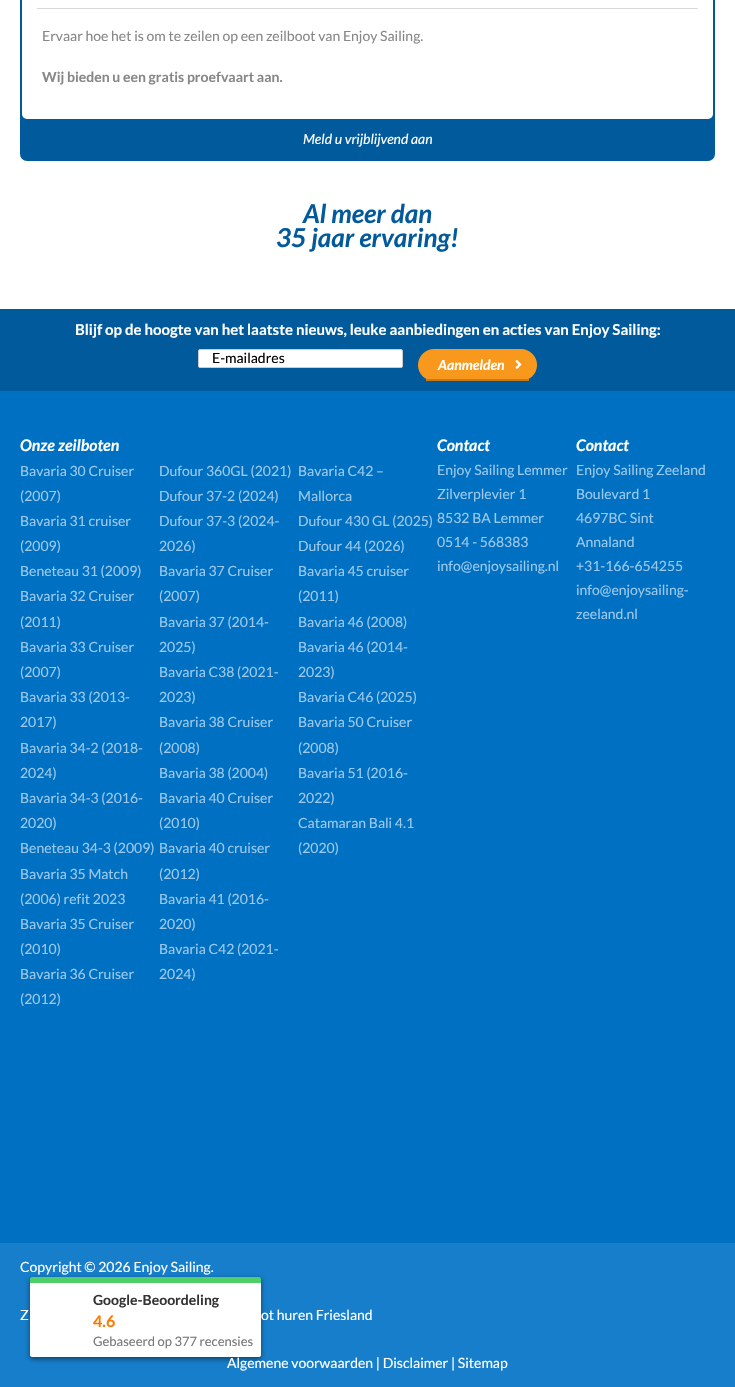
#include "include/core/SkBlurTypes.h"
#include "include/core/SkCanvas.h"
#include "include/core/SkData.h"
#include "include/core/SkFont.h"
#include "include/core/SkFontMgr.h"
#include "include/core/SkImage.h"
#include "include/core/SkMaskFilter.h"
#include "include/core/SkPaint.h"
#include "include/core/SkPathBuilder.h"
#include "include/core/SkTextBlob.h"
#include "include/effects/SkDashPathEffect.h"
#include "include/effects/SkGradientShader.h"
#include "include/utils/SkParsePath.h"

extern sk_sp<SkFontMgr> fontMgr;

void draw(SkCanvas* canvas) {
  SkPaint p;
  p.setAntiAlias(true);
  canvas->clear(SK_ColorWHITE);
  p.setColor(SkColorSetRGB(1, 90, 156));
  canvas->drawRoundRect(SkRect::MakeLTRB(20, -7, 715, 161), 7, 7, p);
  p.setColor(SK_ColorWHITE);
  canvas->drawRoundRect(SkRect::MakeLTRB(22, -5, 713, 119), 5, 5, p);
  p.setColor(SkColorSetRGB(217, 217, 217));
  canvas->drawRect(SkRect::MakeLTRB(37, 8, 698, 9), p);
  p.setColor(SkColorSetRGB(1, 90, 156));
  canvas->drawRect(SkRect::MakeLTRB(0, 309, 735, 391), p);
  p.setColor(SK_ColorWHITE);
  canvas->drawRoundRect(SkRect::MakeLTRB(198.5f, 349.5f, 402.5f, 367.5f), 1.5f, 1.5f, p);
  p.setStyle(SkPaint::kStroke_Style);
  p.setStrokeWidth(1);
  p.setColor(SkColorSetRGB(204, 204, 204));
  canvas->drawRoundRect(SkRect::MakeLTRB(198.5f, 349.5f, 402.5f, 367.5f), 1.5f, 1.5f, p);
  p.setStyle(SkPaint::kFill_Style);
  p.setColor(SkColorSetRGB(248, 153, 30));
  canvas->drawRoundRect(SkRect::MakeLTRB(418, 349, 537, 381), 16, 16, p);
  canvas->drawImageRect(SkImages::DeferredFromEncodedData(SkData::MakeFromFileName("images/1.png")), SkRect::MakeLTRB(515, 360, 522, 369), SkSamplingOptions());
  p.setColor(SkColorSetRGB(198, 122, 24));
  canvas->drawRect(SkRect::MakeLTRB(426, 379, 529, 381), p);
  p.setColor(SkColorSetRGB(0, 112, 195));
  canvas->drawRect(SkRect::MakeLTRB(0, 391, 735, 1243), p);
  p.setColor(SkColorSetRGB(22, 126, 203));
  canvas->drawRect(SkRect::MakeLTRB(0, 1243, 735, 1387), p);
  p.setColor(SkColorSetARGB(66, 0, 0, 0));
  p.setMaskFilter(SkMaskFilter::MakeBlur(kNormal_SkBlurStyle, 2.5f));
  canvas->drawRoundRect(SkRect::MakeLTRB(30, 1279, 261, 1359), 2, 2, p);
  p.setMaskFilter(nullptr);
  p.setMaskFilter(SkMaskFilter::MakeBlur(kNormal_SkBlurStyle, 2.5f));
  canvas->drawRoundRect(SkRect::MakeLTRB(30, 1279, 261, 1359), 2, 2, p);
  p.setMaskFilter(nullptr);
  p.setColor(SkColorSetRGB(79, 206, 106));
  canvas->drawPath(SkPathBuilder().moveTo(32, 1277).lineTo(259, 1277).cubicTo(260, 1277, 261, 1278, 261, 1279).lineTo(261, 1283).lineTo(30, 1283).lineTo(30, 1279).cubicTo(30, 1278, 31, 1277, 32, 1277).close().detach(), p);
  p.setColor(SK_ColorWHITE);
  canvas->drawPath(SkPathBuilder().moveTo(30, 1283).lineTo(261, 1283).lineTo(261, 1355).cubicTo(261, 1356, 260, 1357, 259, 1357).lineTo(32, 1357).cubicTo(31, 1357, 30, 1356, 30, 1355).close().detach(), p);
  SkFont font1(fontMgr->matchFamilyStyle("Lato", SkFontStyle::Normal()), 14);
  font1.setSubpixel(true);
  p.setColor(SkColorSetRGB(135, 135, 135));
  canvas->drawString("Ervaar hoe het is om te zeilen op een zeilboot van Enjoy Sailing.", 42, 41, font1, p);
  SkFont font2(fontMgr->matchFamilyStyle("Lato", SkFontStyle::Bold()), 14);
  font2.setSubpixel(true);
  canvas->drawString("Wij bieden u een gratis proefvaart aan.", 42, 82, font2, p);
  SkFont font3(fontMgr->matchFamilyStyle("Lato", SkFontStyle::Italic()), 14);
  font3.setSubpixel(true);
  p.setColor(SK_ColorWHITE);
  canvas->drawString("Meld u vrijblijvend aan", 303, 144, font3, p);
  SkFont font4(fontMgr->matchFamilyStyle("Lato", SkFontStyle::BoldItalic()), 26);
  font4.setSubpixel(true);
  p.setColor(SkColorSetRGB(1, 90, 156));
  canvas->drawString("Al meer dan", 303, 223, font4, p);
  canvas->drawString("35 jaar ervaring!", 276, 247, font4, p);
  SkFont font5(fontMgr->matchFamilyStyle("Lato", SkFontStyle::Bold()), 15);
  font5.setSubpixel(true);
  p.setColor(SK_ColorWHITE);
  canvas->drawString("Blijf op de hoogte van het laatste nieuws, leuke aanbiedingen en acties van Enjoy Sailing:", 75, 335, font5, p);
  p.setColor(SK_ColorBLACK);
  canvas->drawString("E-mailadres", 212, 363, font1, p);
  SkFont font6(fontMgr->matchFamilyStyle("Lato", SkFontStyle::BoldItalic()), 14);
  font6.setSubpixel(true);
  p.setColor(SK_ColorWHITE);
  canvas->drawString("Aanmelden", 438, 370, font6, p);
  SkFont font7(fontMgr->matchFamilyStyle("Lato", SkFontStyle::BoldItalic()), 16);
  font7.setSubpixel(true);
  canvas->drawString("Onze zeilboten", 20, 451, font7, p);
  p.setColor(SkColorSetRGB(156, 201, 234));
  canvas->drawString("Bavaria 30 Cruiser", 20, 476, font1, p);
  canvas->drawString("(2007)", 20, 501, font1, p);
  canvas->drawString("Bavaria 31 cruiser", 20, 526, font1, p);
  canvas->drawString("(2009)", 20, 551, font1, p);
  canvas->drawString("Beneteau 31 (2009)", 20, 576, font1, p);
  canvas->drawString("Bavaria 32 Cruiser", 20, 601, font1, p);
  canvas->drawString("(2011)", 20, 627, font1, p);
  canvas->drawString("Bavaria 33 Cruiser", 20, 652, font1, p);
  canvas->drawString("(2007)", 20, 677, font1, p);
  canvas->drawString("Bavaria 33 (2013-", 20, 702, font1, p);
  canvas->drawString("2017)", 20, 727, font1, p);
  canvas->drawString("Bavaria 34-2 (2018-", 20, 753, font1, p);
  canvas->drawString("2024)", 20, 778, font1, p);
  canvas->drawString("Bavaria 34-3 (2016-", 20, 803, font1, p);
  canvas->drawString("2020)", 20, 828, font1, p);
  canvas->drawString("Beneteau 34-3 (2009)", 20, 853, font1, p);
  canvas->drawString("Bavaria 35 Match", 20, 879, font1, p);
  canvas->drawString("(2006) refit 2023", 20, 904, font1, p);
  canvas->drawString("Bavaria 35 Cruiser", 20, 929, font1, p);
  canvas->drawString("(2010)", 20, 954, font1, p);
  canvas->drawString("Bavaria 36 Cruiser", 20, 979, font1, p);
  canvas->drawString("(2012)", 20, 1004, font1, p);
  canvas->drawString("Dufour 360GL (2021)", 159, 476, font1, p);
  canvas->drawString("Dufour 37-2 (2024)", 159, 501, font1, p);
  canvas->drawString("Dufour 37-3 (2024-", 159, 526, font1, p);
  canvas->drawString("2026)", 159, 551, font1, p);
  canvas->drawString("Bavaria 37 Cruiser", 159, 576, font1, p);
  canvas->drawString("(2007)", 159, 601, font1, p);
  canvas->drawString("Bavaria 37 (2014-", 159, 627, font1, p);
  canvas->drawString("2025)", 159, 652, font1, p);
  canvas->drawString("Bavaria C38 (2021-", 159, 677, font1, p);
  canvas->drawString("2023)", 159, 702, font1, p);
  canvas->drawString("Bavaria 38 Cruiser", 159, 727, font1, p);
  canvas->drawString("(2008)", 159, 753, font1, p);
  canvas->drawString("Bavaria 38 (2004)", 159, 778, font1, p);
  canvas->drawString("Bavaria 40 Cruiser", 159, 803, font1, p);
  canvas->drawString("(2010)", 159, 828, font1, p);
  canvas->drawString("Bavaria 40 cruiser", 159, 853, font1, p);
  canvas->drawString("(2012)", 159, 879, font1, p);
  canvas->drawString("Bavaria 41 (2016-", 159, 904, font1, p);
  canvas->drawString("2020)", 159, 929, font1, p);
  canvas->drawString("Bavaria C42 (2021-", 159, 954, font1, p);
  canvas->drawString("2024)", 159, 979, font1, p);
  canvas->drawString("Bavaria C42 –", 298, 476, font1, p);
  canvas->drawString("Mallorca", 298, 501, font1, p);
  canvas->drawString("Dufour 430 GL (2025)", 298, 526, font1, p);
  canvas->drawString("Dufour 44 (2026)", 298, 551, font1, p);
  canvas->drawString("Bavaria 45 cruiser", 298, 576, font1, p);
  canvas->drawString("(2011)", 298, 601, font1, p);
  canvas->drawString("Bavaria 46 (2008)", 298, 627, font1, p);
  canvas->drawString("Bavaria 46 (2014-", 298, 652, font1, p);
  canvas->drawString("2023)", 298, 677, font1, p);
  canvas->drawString("Bavaria C46 (2025)", 298, 702, font1, p);
  canvas->drawString("Bavaria 50 Cruiser", 298, 727, font1, p);
  canvas->drawString("(2008)", 298, 753, font1, p);
  canvas->drawString("Bavaria 51 (2016-", 298, 778, font1, p);
  canvas->drawString("2022)", 298, 803, font1, p);
  canvas->drawString("Catamaran Bali 4.1", 298, 828, font1, p);
  canvas->drawString("(2020)", 298, 853, font1, p);
  p.setColor(SK_ColorWHITE);
  canvas->drawString("Contact", 437, 451, font7, p);
  p.setColor(SkColorSetRGB(156, 201, 234));
  canvas->drawString("Enjoy Sailing Lemmer", 437, 475, font1, p);
  canvas->drawString("Zilverplevier 1", 437, 499, font1, p);
  canvas->drawString("8532 BA Lemmer", 437, 523, font1, p);
  canvas->drawString("0514 - 568383", 437, 547, font1, p);
  canvas->drawString("info@enjoysailing.nl", 437, 571, font1, p);
  p.setColor(SK_ColorWHITE);
  canvas->drawString("Contact", 576, 451, font7, p);
  p.setColor(SkColorSetRGB(156, 201, 234));
  canvas->drawString("Enjoy Sailing Zeeland", 576, 475, font1, p);
  canvas->drawString("Boulevard 1", 576, 499, font1, p);
  canvas->drawString("4697BC Sint", 576, 523, font1, p);
  canvas->drawString("Annaland", 576, 547, font1, p);
  canvas->drawString("+31-166-654255", 576, 571, font1, p);
  canvas->drawString("info@enjoysailing-", 576, 595, font1, p);
  canvas->drawString("zeeland.nl", 576, 619, font1, p);
  p.setColor(SK_ColorWHITE);
  canvas->drawString("Copyright © 2026 Enjoy Sailing.", 20, 1272, font1, p);
  canvas->drawString("Z", 20, 1320, font1, p);
  canvas->drawString("ot huren Friesland", 261, 1320, font1, p);
  canvas->drawString("Algemene voorwaarden | Disclaimer | Sitemap", 227, 1368, font1, p);
  p.setColor(SkColorSetRGB(51, 51, 51));
  canvas->drawString("Google-Beoordeling", 93, 1305, font2, p);
  SkFont font8(fontMgr->matchFamilyStyle("Lato", SkFontStyle::Bold()), 16);
  font8.setSubpixel(true);
  p.setColor(SkColorSetRGB(251, 121, 0));
  canvas->drawString("4.6", 93, 1327, font8, p);
  SkFont font9(fontMgr->matchFamilyStyle("Lato", SkFontStyle::Normal()), 13);
  font9.setSubpixel(true);
  p.setColor(SkColorSetRGB(119, 119, 119));
  canvas->drawString("Gebaseerd op 377 recensies", 93, 1346, font9, p);
}
